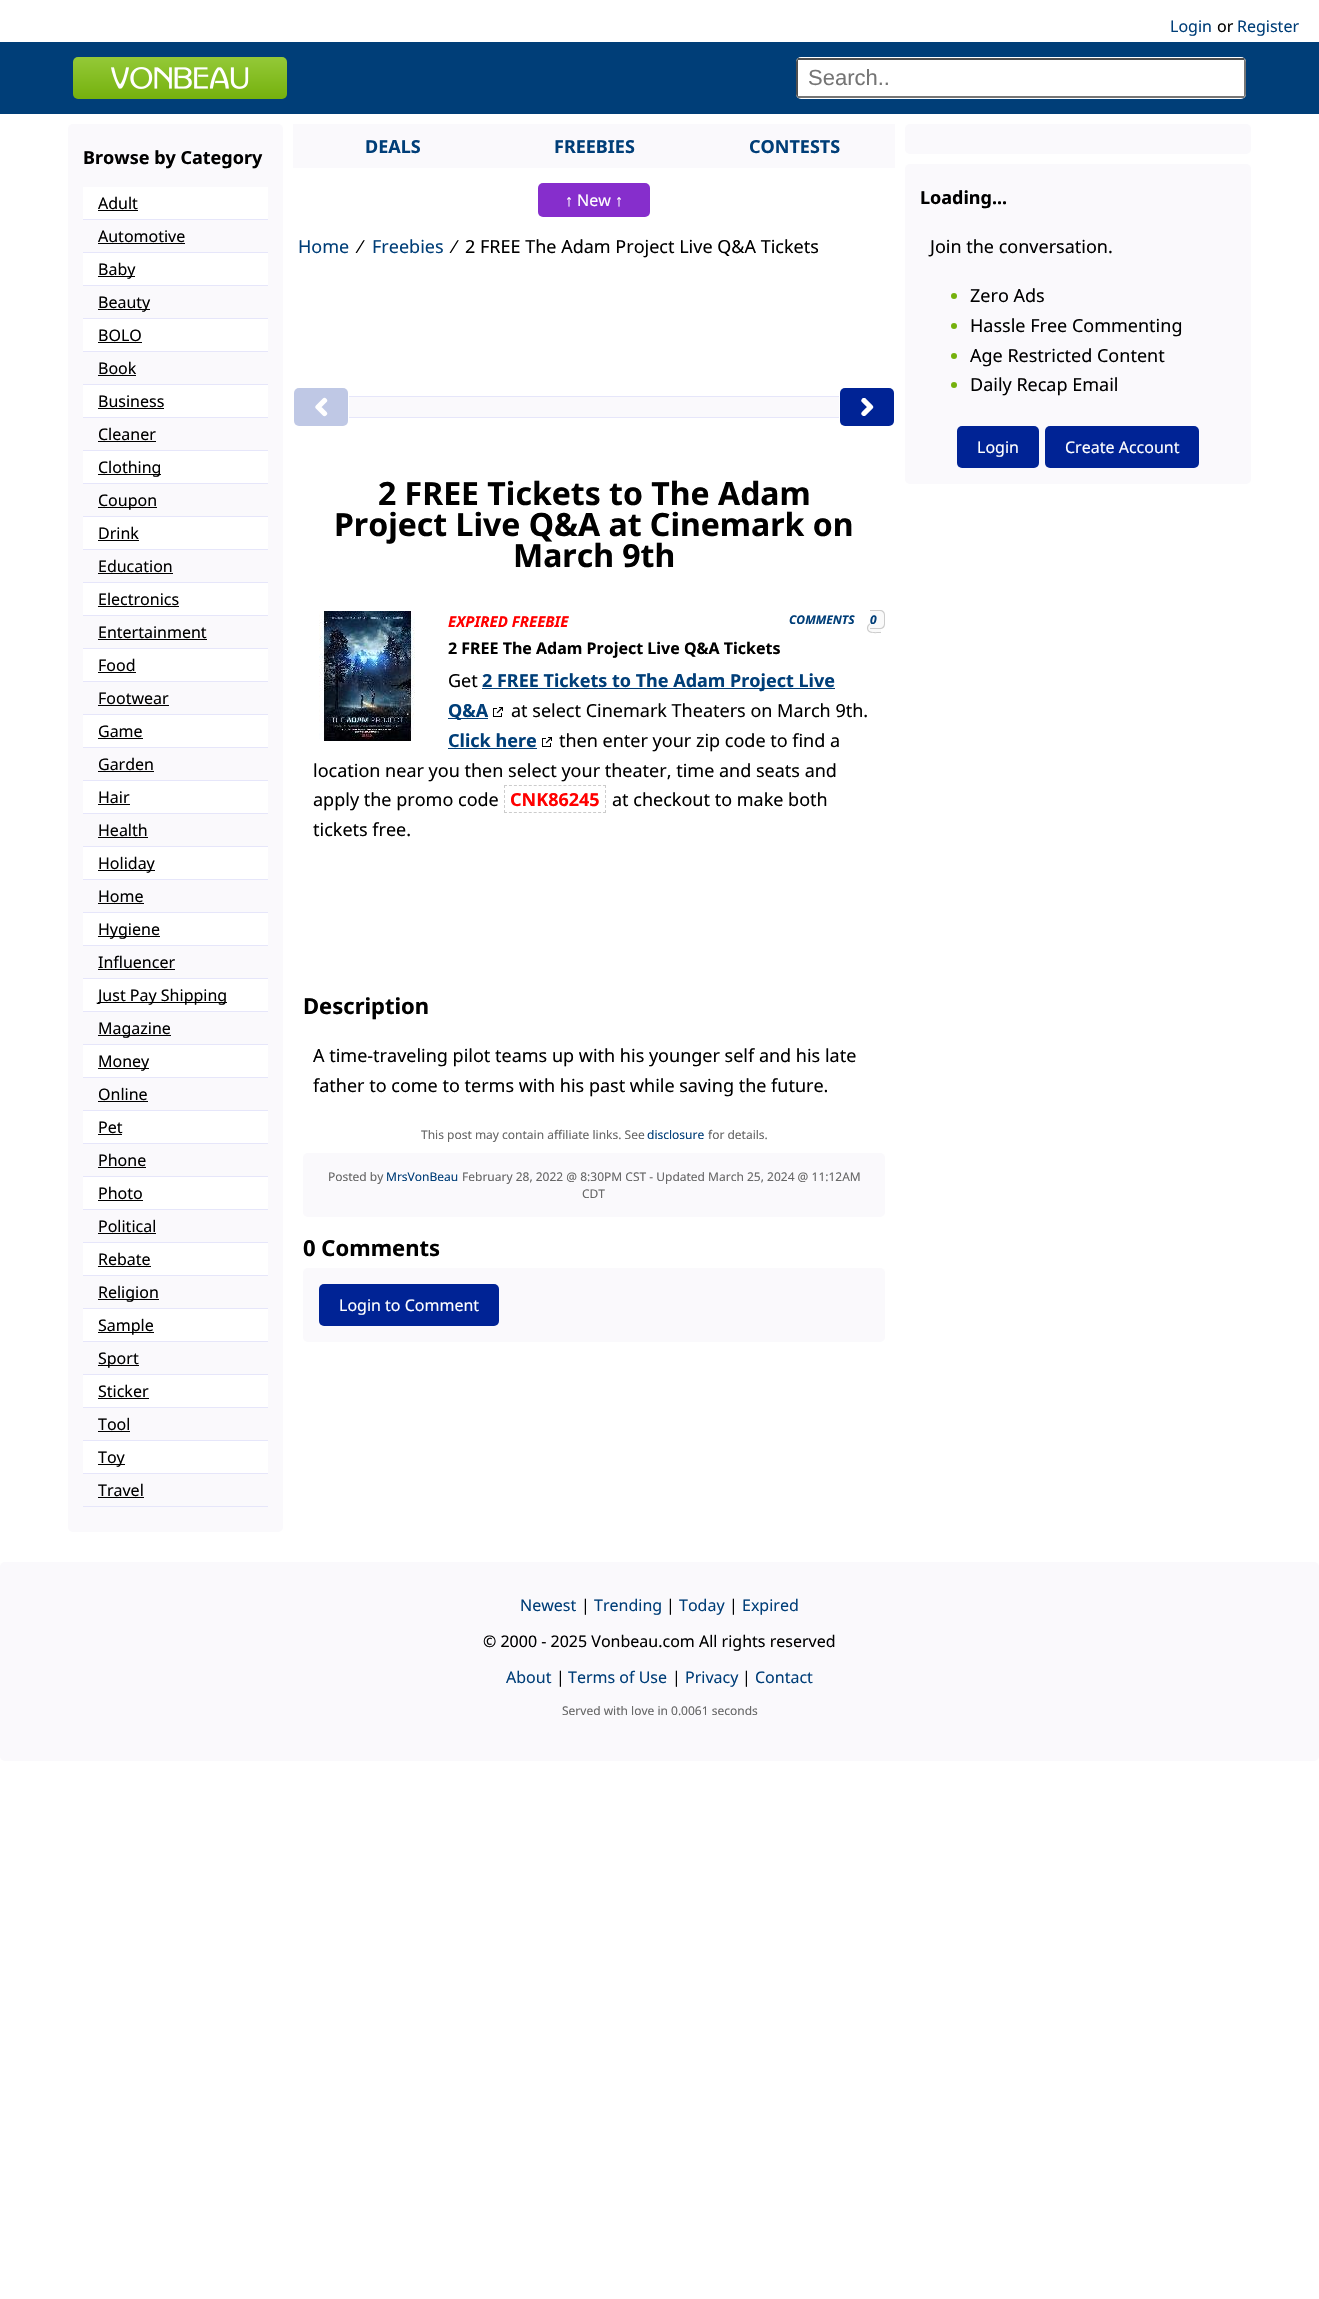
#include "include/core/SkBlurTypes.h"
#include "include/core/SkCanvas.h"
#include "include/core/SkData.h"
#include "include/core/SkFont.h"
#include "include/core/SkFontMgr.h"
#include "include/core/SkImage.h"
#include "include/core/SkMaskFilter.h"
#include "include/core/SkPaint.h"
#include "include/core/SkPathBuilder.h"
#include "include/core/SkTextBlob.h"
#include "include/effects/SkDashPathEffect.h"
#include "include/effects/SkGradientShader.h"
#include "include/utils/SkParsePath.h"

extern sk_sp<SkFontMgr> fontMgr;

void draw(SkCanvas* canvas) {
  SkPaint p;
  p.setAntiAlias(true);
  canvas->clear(SK_ColorWHITE);
  p.setColor(SkColorSetRGB(0, 62, 120));
  canvas->drawRect(SkRect::MakeLTRB(0, 42, 1319, 114), p);
  {
    const SkColor colors[] = {SkColorSetRGB(148, 201, 55), SkColorSetRGB(117, 177, 13)};
    const float stops[] = {0, 1};
    const SkPoint ends[] = {{180, 57}, {180, 99}};
    p.setShader(SkGradientShader::MakeLinear(ends, colors, stops, 2, SkTileMode::kClamp));
    p.setAlpha(255);
  }
  canvas->drawRoundRect(SkRect::MakeLTRB(73, 57, 287, 99), 5, 5, p);
  canvas->drawImageRect(SkImages::DeferredFromEncodedData(SkData::MakeFromFileName("images/1.png")), SkRect::MakeLTRB(111, 67, 249, 89), SkSamplingOptions());
  p.setShader(nullptr);
  p.setColor(SK_ColorWHITE);
  canvas->drawRoundRect(SkRect::MakeLTRB(796, 57, 1246, 99), 5, 5, p);
  p.setColor(SkColorSetRGB(79, 79, 79));
  canvas->drawPath(SkPathBuilder().moveTo(797, 59).lineTo(798, 58).lineTo(1244, 58).lineTo(1245, 59).lineTo(1244, 60).lineTo(798, 60).close().detach(), p);
  p.setColor(SkColorSetRGB(118, 118, 118));
  canvas->drawPath(SkPathBuilder().moveTo(1246, 94).lineTo(1246, 62).cubicTo(1246, 61, 1245.5f, 60, 1245, 59).lineTo(1244, 60).lineTo(1244, 96).lineTo(1245, 97).cubicTo(1245.5f, 96, 1246, 95, 1246, 94).close().detach(), p);
  canvas->drawPath(SkPathBuilder().moveTo(798, 98).lineTo(797, 97).lineTo(798, 96).lineTo(1244, 96).lineTo(1245, 97).lineTo(1244, 98).close().detach(), p);
  p.setColor(SkColorSetRGB(79, 79, 79));
  canvas->drawPath(SkPathBuilder().moveTo(796, 62).lineTo(796, 94).cubicTo(796, 95, 796.5f, 96, 797, 97).lineTo(798, 96).lineTo(798, 60).lineTo(797, 59).cubicTo(796.5f, 60, 796, 61, 796, 62).close().detach(), p);
  p.setColor(SkColorSetRGB(250, 249, 252));
  canvas->drawRoundRect(SkRect::MakeLTRB(68, 124, 283, 1532), 5, 5, p);
  p.setColor(SK_ColorWHITE);
  canvas->drawRect(SkRect::MakeLTRB(83, 187, 268, 219), p);
  p.setColor(SkColorSetRGB(230, 230, 250));
  canvas->drawRect(SkRect::MakeLTRB(83, 219, 268, 220), p);
  p.setColor(SK_ColorBLACK);
  canvas->drawRect(SkRect::MakeLTRB(98, 210, 138, 211), p);
  p.setColor(SkColorSetRGB(230, 230, 250));
  canvas->drawRect(SkRect::MakeLTRB(83, 252, 268, 253), p);
  p.setColor(SK_ColorBLACK);
  canvas->drawRect(SkRect::MakeLTRB(98, 243, 185, 244), p);
  p.setColor(SK_ColorWHITE);
  canvas->drawRect(SkRect::MakeLTRB(83, 253, 268, 285), p);
  p.setColor(SkColorSetRGB(230, 230, 250));
  canvas->drawRect(SkRect::MakeLTRB(83, 285, 268, 286), p);
  p.setColor(SK_ColorBLACK);
  canvas->drawRect(SkRect::MakeLTRB(98, 276, 135, 277), p);
  p.setColor(SkColorSetRGB(230, 230, 250));
  canvas->drawRect(SkRect::MakeLTRB(83, 318, 268, 319), p);
  p.setColor(SK_ColorBLACK);
  canvas->drawRect(SkRect::MakeLTRB(98, 309, 150, 310), p);
  p.setColor(SK_ColorWHITE);
  canvas->drawRect(SkRect::MakeLTRB(83, 319, 268, 351), p);
  p.setColor(SkColorSetRGB(230, 230, 250));
  canvas->drawRect(SkRect::MakeLTRB(83, 351, 268, 352), p);
  p.setColor(SK_ColorBLACK);
  canvas->drawRect(SkRect::MakeLTRB(98, 342, 142, 343), p);
  p.setColor(SkColorSetRGB(230, 230, 250));
  canvas->drawRect(SkRect::MakeLTRB(83, 384, 268, 385), p);
  p.setColor(SK_ColorBLACK);
  canvas->drawRect(SkRect::MakeLTRB(98, 375, 136, 376), p);
  p.setColor(SK_ColorWHITE);
  canvas->drawRect(SkRect::MakeLTRB(83, 385, 268, 417), p);
  p.setColor(SkColorSetRGB(230, 230, 250));
  canvas->drawRect(SkRect::MakeLTRB(83, 417, 268, 418), p);
  p.setColor(SK_ColorBLACK);
  canvas->drawRect(SkRect::MakeLTRB(98, 408, 164, 409), p);
  p.setColor(SkColorSetRGB(230, 230, 250));
  canvas->drawRect(SkRect::MakeLTRB(83, 450, 268, 451), p);
  p.setColor(SK_ColorBLACK);
  canvas->drawRect(SkRect::MakeLTRB(98, 441, 156, 442), p);
  p.setColor(SK_ColorWHITE);
  canvas->drawRect(SkRect::MakeLTRB(83, 451, 268, 483), p);
  p.setColor(SkColorSetRGB(230, 230, 250));
  canvas->drawRect(SkRect::MakeLTRB(83, 483, 268, 484), p);
  p.setColor(SK_ColorBLACK);
  canvas->drawRect(SkRect::MakeLTRB(98, 474, 161, 475), p);
  p.setColor(SkColorSetRGB(230, 230, 250));
  canvas->drawRect(SkRect::MakeLTRB(83, 516, 268, 517), p);
  p.setColor(SK_ColorBLACK);
  canvas->drawRect(SkRect::MakeLTRB(98, 507, 157, 508), p);
  p.setColor(SK_ColorWHITE);
  canvas->drawRect(SkRect::MakeLTRB(83, 517, 268, 549), p);
  p.setColor(SkColorSetRGB(230, 230, 250));
  canvas->drawRect(SkRect::MakeLTRB(83, 549, 268, 550), p);
  p.setColor(SK_ColorBLACK);
  canvas->drawRect(SkRect::MakeLTRB(98, 540, 139, 541), p);
  p.setColor(SkColorSetRGB(230, 230, 250));
  canvas->drawRect(SkRect::MakeLTRB(83, 582, 268, 583), p);
  p.setColor(SK_ColorBLACK);
  canvas->drawRect(SkRect::MakeLTRB(98, 573, 173, 574), p);
  p.setColor(SK_ColorWHITE);
  canvas->drawRect(SkRect::MakeLTRB(83, 583, 268, 615), p);
  p.setColor(SkColorSetRGB(230, 230, 250));
  canvas->drawRect(SkRect::MakeLTRB(83, 615, 268, 616), p);
  p.setColor(SK_ColorBLACK);
  canvas->drawRect(SkRect::MakeLTRB(98, 606, 179, 607), p);
  p.setColor(SkColorSetRGB(230, 230, 250));
  canvas->drawRect(SkRect::MakeLTRB(83, 648, 268, 649), p);
  p.setColor(SK_ColorBLACK);
  canvas->drawRect(SkRect::MakeLTRB(98, 639, 207, 640), p);
  p.setColor(SK_ColorWHITE);
  canvas->drawRect(SkRect::MakeLTRB(83, 649, 268, 681), p);
  p.setColor(SkColorSetRGB(230, 230, 250));
  canvas->drawRect(SkRect::MakeLTRB(83, 681, 268, 682), p);
  p.setColor(SK_ColorBLACK);
  canvas->drawRect(SkRect::MakeLTRB(98, 672, 136, 673), p);
  p.setColor(SkColorSetRGB(230, 230, 250));
  canvas->drawRect(SkRect::MakeLTRB(83, 714, 268, 715), p);
  p.setColor(SK_ColorBLACK);
  canvas->drawRect(SkRect::MakeLTRB(98, 705, 169, 706), p);
  p.setColor(SK_ColorWHITE);
  canvas->drawRect(SkRect::MakeLTRB(83, 715, 268, 747), p);
  p.setColor(SkColorSetRGB(230, 230, 250));
  canvas->drawRect(SkRect::MakeLTRB(83, 747, 268, 748), p);
  p.setColor(SK_ColorBLACK);
  canvas->drawRect(SkRect::MakeLTRB(98, 738, 143, 739), p);
  p.setColor(SkColorSetRGB(230, 230, 250));
  canvas->drawRect(SkRect::MakeLTRB(83, 780, 268, 781), p);
  p.setColor(SK_ColorBLACK);
  canvas->drawRect(SkRect::MakeLTRB(98, 771, 154, 772), p);
  p.setColor(SK_ColorWHITE);
  canvas->drawRect(SkRect::MakeLTRB(83, 781, 268, 813), p);
  p.setColor(SkColorSetRGB(230, 230, 250));
  canvas->drawRect(SkRect::MakeLTRB(83, 813, 268, 814), p);
  p.setColor(SK_ColorBLACK);
  canvas->drawRect(SkRect::MakeLTRB(98, 804, 130, 805), p);
  p.setColor(SkColorSetRGB(230, 230, 250));
  canvas->drawRect(SkRect::MakeLTRB(83, 846, 268, 847), p);
  p.setColor(SK_ColorBLACK);
  canvas->drawRect(SkRect::MakeLTRB(98, 837, 148, 838), p);
  p.setColor(SK_ColorWHITE);
  canvas->drawRect(SkRect::MakeLTRB(83, 847, 268, 879), p);
  p.setColor(SkColorSetRGB(230, 230, 250));
  canvas->drawRect(SkRect::MakeLTRB(83, 879, 268, 880), p);
  p.setColor(SK_ColorBLACK);
  canvas->drawRect(SkRect::MakeLTRB(98, 870, 155, 871), p);
  p.setColor(SkColorSetRGB(230, 230, 250));
  canvas->drawRect(SkRect::MakeLTRB(83, 912, 268, 913), p);
  p.setColor(SK_ColorBLACK);
  canvas->drawRect(SkRect::MakeLTRB(98, 903, 144, 904), p);
  p.setColor(SK_ColorWHITE);
  canvas->drawRect(SkRect::MakeLTRB(83, 913, 268, 945), p);
  p.setColor(SkColorSetRGB(230, 230, 250));
  canvas->drawRect(SkRect::MakeLTRB(83, 945, 268, 946), p);
  p.setColor(SK_ColorBLACK);
  canvas->drawRect(SkRect::MakeLTRB(98, 936, 160, 937), p);
  p.setColor(SkColorSetRGB(230, 230, 250));
  canvas->drawRect(SkRect::MakeLTRB(83, 978, 268, 979), p);
  p.setColor(SK_ColorBLACK);
  canvas->drawRect(SkRect::MakeLTRB(98, 969, 175, 970), p);
  p.setColor(SK_ColorWHITE);
  canvas->drawRect(SkRect::MakeLTRB(83, 979, 268, 1011), p);
  p.setColor(SkColorSetRGB(230, 230, 250));
  canvas->drawRect(SkRect::MakeLTRB(83, 1011, 268, 1012), p);
  p.setColor(SK_ColorBLACK);
  canvas->drawRect(SkRect::MakeLTRB(98, 1002, 227, 1003), p);
  p.setColor(SkColorSetRGB(230, 230, 250));
  canvas->drawRect(SkRect::MakeLTRB(83, 1044, 268, 1045), p);
  p.setColor(SK_ColorBLACK);
  canvas->drawRect(SkRect::MakeLTRB(98, 1035, 171, 1036), p);
  p.setColor(SK_ColorWHITE);
  canvas->drawRect(SkRect::MakeLTRB(83, 1045, 268, 1077), p);
  p.setColor(SkColorSetRGB(230, 230, 250));
  canvas->drawRect(SkRect::MakeLTRB(83, 1077, 268, 1078), p);
  p.setColor(SK_ColorBLACK);
  canvas->drawRect(SkRect::MakeLTRB(98, 1068, 149, 1069), p);
  p.setColor(SkColorSetRGB(230, 230, 250));
  canvas->drawRect(SkRect::MakeLTRB(83, 1110, 268, 1111), p);
  p.setColor(SK_ColorBLACK);
  canvas->drawRect(SkRect::MakeLTRB(98, 1101, 148, 1102), p);
  p.setColor(SK_ColorWHITE);
  canvas->drawRect(SkRect::MakeLTRB(83, 1111, 268, 1143), p);
  p.setColor(SkColorSetRGB(230, 230, 250));
  canvas->drawRect(SkRect::MakeLTRB(83, 1143, 268, 1144), p);
  p.setColor(SK_ColorBLACK);
  canvas->drawRect(SkRect::MakeLTRB(98, 1134, 122, 1135), p);
  p.setColor(SkColorSetRGB(230, 230, 250));
  canvas->drawRect(SkRect::MakeLTRB(83, 1176, 268, 1177), p);
  p.setColor(SK_ColorBLACK);
  canvas->drawRect(SkRect::MakeLTRB(98, 1167, 146, 1168), p);
  p.setColor(SK_ColorWHITE);
  canvas->drawRect(SkRect::MakeLTRB(83, 1177, 268, 1209), p);
  p.setColor(SkColorSetRGB(230, 230, 250));
  canvas->drawRect(SkRect::MakeLTRB(83, 1209, 268, 1210), p);
  p.setColor(SK_ColorBLACK);
  canvas->drawRect(SkRect::MakeLTRB(98, 1200, 143, 1201), p);
  p.setColor(SkColorSetRGB(230, 230, 250));
  canvas->drawRect(SkRect::MakeLTRB(83, 1242, 268, 1243), p);
  p.setColor(SK_ColorBLACK);
  canvas->drawRect(SkRect::MakeLTRB(98, 1233, 156, 1234), p);
  p.setColor(SK_ColorWHITE);
  canvas->drawRect(SkRect::MakeLTRB(83, 1243, 268, 1275), p);
  p.setColor(SkColorSetRGB(230, 230, 250));
  canvas->drawRect(SkRect::MakeLTRB(83, 1275, 268, 1276), p);
  p.setColor(SK_ColorBLACK);
  canvas->drawRect(SkRect::MakeLTRB(98, 1266, 151, 1267), p);
  p.setColor(SkColorSetRGB(230, 230, 250));
  canvas->drawRect(SkRect::MakeLTRB(83, 1308, 268, 1309), p);
  p.setColor(SK_ColorBLACK);
  canvas->drawRect(SkRect::MakeLTRB(98, 1299, 159, 1300), p);
  p.setColor(SK_ColorWHITE);
  canvas->drawRect(SkRect::MakeLTRB(83, 1309, 268, 1341), p);
  p.setColor(SkColorSetRGB(230, 230, 250));
  canvas->drawRect(SkRect::MakeLTRB(83, 1341, 268, 1342), p);
  p.setColor(SK_ColorBLACK);
  canvas->drawRect(SkRect::MakeLTRB(98, 1332, 154, 1333), p);
  p.setColor(SkColorSetRGB(230, 230, 250));
  canvas->drawRect(SkRect::MakeLTRB(83, 1374, 268, 1375), p);
  p.setColor(SK_ColorBLACK);
  canvas->drawRect(SkRect::MakeLTRB(98, 1365, 139, 1366), p);
  p.setColor(SK_ColorWHITE);
  canvas->drawRect(SkRect::MakeLTRB(83, 1375, 268, 1407), p);
  p.setColor(SkColorSetRGB(230, 230, 250));
  canvas->drawRect(SkRect::MakeLTRB(83, 1407, 268, 1408), p);
  p.setColor(SK_ColorBLACK);
  canvas->drawRect(SkRect::MakeLTRB(98, 1398, 149, 1399), p);
  p.setColor(SkColorSetRGB(230, 230, 250));
  canvas->drawRect(SkRect::MakeLTRB(83, 1440, 268, 1441), p);
  p.setColor(SK_ColorBLACK);
  canvas->drawRect(SkRect::MakeLTRB(98, 1431, 130, 1432), p);
  p.setColor(SK_ColorWHITE);
  canvas->drawRect(SkRect::MakeLTRB(83, 1441, 268, 1473), p);
  p.setColor(SkColorSetRGB(230, 230, 250));
  canvas->drawRect(SkRect::MakeLTRB(83, 1473, 268, 1474), p);
  p.setColor(SK_ColorBLACK);
  canvas->drawRect(SkRect::MakeLTRB(98, 1464, 125, 1465), p);
  p.setColor(SkColorSetRGB(230, 230, 250));
  canvas->drawRect(SkRect::MakeLTRB(83, 1506, 268, 1507), p);
  p.setColor(SK_ColorBLACK);
  canvas->drawRect(SkRect::MakeLTRB(98, 1497, 144, 1498), p);
  p.setColor(SkColorSetRGB(250, 249, 252));
  canvas->drawRect(SkRect::MakeLTRB(293, 124, 895, 168), p);
  p.setColor(SkColorSetRGB(134, 46, 204));
  canvas->drawRoundRect(SkRect::MakeLTRB(538, 183, 650, 217), 5, 5, p);
  p.setColor(SkColorSetRGB(191, 200, 229));
  canvas->drawRoundRect(SkRect::MakeLTRB(294, 388, 348, 426), 5, 5, p);
  p.setStyle(SkPaint::kStroke_Style);
  p.setStrokeWidth(5.3f);
  p.setStrokeCap(SkPaint::kRound_Cap);
  p.setStrokeJoin(SkPaint::kRound_Join);
  p.setColor(SK_ColorWHITE);
  canvas->drawPath(SkPathBuilder().moveTo(324.5f, 400.5f).lineTo(318, 407).lineTo(324.5f, 413.5f).detach(), p);
  p.setStyle(SkPaint::kFill_Style);
  p.setColor(SkColorSetRGB(250, 249, 252));
  canvas->drawRect(SkRect::MakeLTRB(349, 397, 839, 417), p);
  p.setColor(SkColorSetRGB(230, 230, 250));
  canvas->drawRect(SkRect::MakeLTRB(349, 396, 839, 397), p);
  canvas->drawRect(SkRect::MakeLTRB(349, 417, 839, 418), p);
  p.setColor(SkColorSetRGB(0, 35, 149));
  canvas->drawRoundRect(SkRect::MakeLTRB(840, 388, 894, 426), 5, 5, p);
  canvas->save();
  canvas->clipRect(SkRect::MakeLTRB(860, 398, 874, 416));
  p.setStyle(SkPaint::kStroke_Style);
  p.setColor(SK_ColorWHITE);
  canvas->drawPath(SkPathBuilder().moveTo(864, 400.5f).lineTo(870.5f, 407).lineTo(864, 413.5f).detach(), p);
  canvas->restore();
  canvas->drawImageRect(SkImages::DeferredFromEncodedData(SkData::MakeFromFileName("images/2.png")), SkRect::MakeLTRB(319, 611, 415, 741), SkSamplingOptions());
  p.setStyle(SkPaint::kFill_Style);
  p.setColor(SkColorSetRGB(250, 250, 250));
  canvas->drawPath(SkPathBuilder().moveTo(872, 623).lineTo(881, 623).lineTo(881, 633).lineTo(872, 633).cubicTo(869, 633, 867, 631, 867, 628).cubicTo(867, 625, 869, 623, 872, 623).close().detach(), p);
  p.setColor(SkColorSetRGB(204, 204, 204));
  canvas->drawPath(SkPathBuilder(SkPathFillType::kEvenOdd).moveTo(872, 623).lineTo(881, 623).lineTo(881, 633).cubicTo(878, 633, 872.5f, 633.5f, 870, 632.5f).cubicTo(865, 630.5f, 866.5f, 623, 872, 623).close().moveTo(872, 624).lineTo(881, 624).lineTo(881, 632).cubicTo(878.5f, 632, 872.5f, 632.5f, 870.5f, 631.5f).cubicTo(866.5f, 630, 868, 624, 872, 624).close().detach(), p);
  p.setColor(SkColorSetRGB(250, 250, 250));
  canvas->drawPath(SkPathBuilder().moveTo(870, 610).lineTo(880, 610).cubicTo(883, 610, 885, 612, 885, 615).lineTo(885, 624).cubicTo(885, 627, 883, 629, 880, 629).lineTo(870, 629).close().detach(), p);
  p.setColor(SkColorSetRGB(204, 204, 204));
  canvas->drawPath(SkPathBuilder(SkPathFillType::kEvenOdd).moveTo(870, 610).lineTo(880, 610).cubicTo(883, 610, 885, 612, 885, 615).lineTo(885, 624).cubicTo(885, 627, 883, 629, 880, 629).lineTo(870, 629).close().moveTo(870, 611).lineTo(880, 611).cubicTo(882, 611, 884, 613, 884, 615).lineTo(884, 624).cubicTo(884, 626, 882, 628, 880, 628).lineTo(870, 628).close().detach(), p);
  p.setColor(SkColorSetRGB(0, 62, 120));
  canvas->drawRect(SkRect::MakeLTRB(482, 688, 835, 689), p);
  canvas->drawRect(SkRect::MakeLTRB(448, 718, 488, 719), p);
  canvas->drawImageRect(SkImages::DeferredFromEncodedData(SkData::MakeFromFileName("images/3.png")), SkRect::MakeLTRB(493, 707, 503, 717), SkSamplingOptions());
  canvas->drawRect(SkRect::MakeLTRB(448, 748, 537, 749), p);
  canvas->drawImageRect(SkImages::DeferredFromEncodedData(SkData::MakeFromFileName("images/3.png")), SkRect::MakeLTRB(542, 737, 552, 747), SkSamplingOptions());
  p.setStyle(SkPaint::kStroke_Style);
  p.setStrokeWidth(1);
  p.setStrokeCap(SkPaint::kButt_Cap);
  p.setStrokeJoin(SkPaint::kMiter_Join);
  p.setColor(SkColorSetRGB(204, 204, 204));
  p.setPathEffect(SkDashPathEffect::Make({{3, 1.95f}}, 0));
  canvas->drawPath(SkPathBuilder().moveTo(504, 785.5f).lineTo(606, 785.5f).detach(), p);
  p.setPathEffect(nullptr);
  p.setPathEffect(SkDashPathEffect::Make({{3, 2}}, 0));
  canvas->drawPath(SkPathBuilder().moveTo(605.5f, 785).lineTo(605.5f, 813).detach(), p);
  p.setPathEffect(nullptr);
  p.setPathEffect(SkDashPathEffect::Make({{3, 1.95f}}, 0));
  canvas->drawPath(SkPathBuilder().moveTo(504, 812.5f).lineTo(606, 812.5f).detach(), p);
  p.setPathEffect(nullptr);
  p.setPathEffect(SkDashPathEffect::Make({{3, 2}}, 0));
  canvas->drawPath(SkPathBuilder().moveTo(504.5f, 785).lineTo(504.5f, 813).detach(), p);
  p.setPathEffect(nullptr);
  p.setStyle(SkPaint::kFill_Style);
  p.setColor(SkColorSetRGB(250, 249, 252));
  canvas->drawRoundRect(SkRect::MakeLTRB(303, 1153, 885, 1217), 5, 5, p);
  canvas->drawRoundRect(SkRect::MakeLTRB(303, 1268, 885, 1342), 5, 5, p);
  p.setColor(SkColorSetRGB(0, 35, 149));
  canvas->drawRoundRect(SkRect::MakeLTRB(319, 1284, 499, 1326), 5, 5, p);
  p.setColor(SkColorSetRGB(250, 249, 252));
  canvas->drawRoundRect(SkRect::MakeLTRB(905, 124, 1251, 154), 5, 5, p);
  canvas->drawRoundRect(SkRect::MakeLTRB(905, 164, 1251, 484), 5, 5, p);
  p.setColor(SkColorSetRGB(117, 177, 13));
  canvas->drawCircle(954, 296, 3, p);
  canvas->drawCircle(954, 326, 3, p);
  canvas->drawCircle(954, 356, 3, p);
  canvas->drawCircle(954, 385, 3, p);
  p.setColor(SkColorSetRGB(0, 35, 149));
  canvas->drawRoundRect(SkRect::MakeLTRB(957, 426, 1039, 468), 5, 5, p);
  canvas->drawRoundRect(SkRect::MakeLTRB(1045, 426, 1199, 468), 5, 5, p);
  p.setColor(SkColorSetRGB(250, 249, 252));
  canvas->drawRoundRect(SkRect::MakeLTRB(0, 1562, 1319, 1761), 5, 5, p);
  SkFont font1(fontMgr->matchFamilyStyle("Noto Sans", SkFontStyle::Normal()), 16);
  font1.setSubpixel(true);
  p.setColor(SkColorSetRGB(0, 62, 120));
  canvas->drawString("Login", 1170, 32, font1, p);
  p.setColor(SK_ColorBLACK);
  canvas->drawString("or", 1217, 32, font1, p);
  p.setColor(SkColorSetRGB(0, 62, 120));
  canvas->drawString("Register", 1237, 32, font1, p);
  SkFont font2(fontMgr->matchFamilyStyle("Liberation Sans", SkFontStyle::Normal()), 22);
  font2.setSubpixel(true);
  p.setColor(SkColorSetRGB(117, 117, 117));
  canvas->drawString("Search..", 808, 85, font2, p);
  SkFont font3(fontMgr->matchFamilyStyle("Noto Sans", SkFontStyle::Bold()), 18);
  font3.setSubpixel(true);
  p.setColor(SK_ColorBLACK);
  canvas->drawString("Browse by Category", 83, 164, font3, p);
  canvas->drawString("Adult", 98, 209, font1, p);
  canvas->drawString("Automotive", 98, 242, font1, p);
  canvas->drawString("Baby", 98, 275, font1, p);
  canvas->drawString("Beauty", 98, 308, font1, p);
  canvas->drawString("BOLO", 98, 341, font1, p);
  canvas->drawString("Book", 98, 374, font1, p);
  canvas->drawString("Business", 98, 407, font1, p);
  canvas->drawString("Cleaner", 98, 440, font1, p);
  canvas->drawString("Clothing", 98, 473, font1, p);
  canvas->drawString("Coupon", 98, 506, font1, p);
  canvas->drawString("Drink", 98, 539, font1, p);
  canvas->drawString("Education", 98, 572, font1, p);
  canvas->drawString("Electronics", 98, 605, font1, p);
  canvas->drawString("Entertainment", 98, 638, font1, p);
  canvas->drawString("Food", 98, 671, font1, p);
  canvas->drawString("Footwear", 98, 704, font1, p);
  canvas->drawString("Game", 98, 737, font1, p);
  canvas->drawString("Garden", 98, 770, font1, p);
  canvas->drawString("Hair", 98, 803, font1, p);
  canvas->drawString("Health", 98, 836, font1, p);
  canvas->drawString("Holiday", 98, 869, font1, p);
  canvas->drawString("Home", 98, 902, font1, p);
  canvas->drawString("Hygiene", 98, 935, font1, p);
  canvas->drawString("Influencer", 98, 968, font1, p);
  canvas->drawString("Just Pay Shipping", 98, 1001, font1, p);
  canvas->drawString("Magazine", 98, 1034, font1, p);
  canvas->drawString("Money", 98, 1067, font1, p);
  canvas->drawString("Online", 98, 1100, font1, p);
  canvas->drawString("Pet", 98, 1133, font1, p);
  canvas->drawString("Phone", 98, 1166, font1, p);
  canvas->drawString("Photo", 98, 1199, font1, p);
  canvas->drawString("Political", 98, 1232, font1, p);
  canvas->drawString("Rebate", 98, 1265, font1, p);
  canvas->drawString("Religion", 98, 1298, font1, p);
  canvas->drawString("Sample", 98, 1331, font1, p);
  canvas->drawString("Sport", 98, 1364, font1, p);
  canvas->drawString("Sticker", 98, 1397, font1, p);
  canvas->drawString("Tool", 98, 1430, font1, p);
  canvas->drawString("Toy", 98, 1463, font1, p);
  canvas->drawString("Travel", 98, 1496, font1, p);
  p.setColor(SkColorSetRGB(0, 62, 120));
  canvas->drawString("DEALS", 365, 153, font3, p);
  canvas->drawString("FREEBIES", 554, 153, font3, p);
  canvas->drawString("CONTESTS", 749, 153, font3, p);
  SkFont font4(fontMgr->matchFamilyStyle("Liberation Sans", SkFontStyle::Normal()), 16);
  font4.setSubpixel(true);
  p.setColor(SK_ColorWHITE);
  canvas->drawString("↑", 565, 206, font4, p);
  canvas->drawString("New", 577, 206, font1, p);
  canvas->drawString("↑", 615, 206, font4, p);
  SkFont font5(fontMgr->matchFamilyStyle("Noto Sans", SkFontStyle::Normal()), 18);
  font5.setSubpixel(true);
  p.setColor(SkColorSetRGB(0, 62, 120));
  canvas->drawString("Home", 298, 253, font5, p);
  p.setColor(SK_ColorBLACK);
  canvas->drawString("⁄", 359, 253, font5, p);
  p.setColor(SkColorSetRGB(0, 62, 120));
  canvas->drawString("Freebies", 372, 253, font5, p);
  p.setColor(SK_ColorBLACK);
  canvas->drawString("⁄", 453, 253, font5, p);
  canvas->drawString("2 FREE The Adam Project Live Q&A Tickets", 465, 253, font5, p);
  SkFont font6(fontMgr->matchFamilyStyle("Noto Sans", SkFontStyle::Bold()), 32);
  font6.setSubpixel(true);
  canvas->drawString("2 FREE Tickets to The Adam", 378, 505, font6, p);
  canvas->drawString("Project Live Q&A at Cinemark on", 334, 536, font6, p);
  canvas->drawString("March 9th", 513, 567, font6, p);
  SkFont font7(fontMgr->matchFamilyStyle("Noto Sans", SkFontStyle::BoldItalic()), 15);
  font7.setSubpixel(true);
  p.setColor(SkColorSetRGB(255, 0, 0));
  canvas->drawString("EXPIRED FREEBIE", 448, 627, font7, p);
  SkFont font8(fontMgr->matchFamilyStyle("Noto Sans", SkFontStyle::BoldItalic()), 12);
  font8.setSubpixel(true);
  p.setColor(SkColorSetRGB(0, 62, 120));
  canvas->drawString("COMMENTS", 789, 624, font8, p);
  canvas->drawString("0", 870, 624, font8, p);
  SkFont font9(fontMgr->matchFamilyStyle("Noto Sans", SkFontStyle::Bold()), 16);
  font9.setSubpixel(true);
  p.setColor(SK_ColorBLACK);
  canvas->drawString("2 FREE The Adam Project Live Q&A Tickets", 448, 654, font9, p);
  canvas->drawString("Get", 448, 687, font5, p);
  p.setColor(SkColorSetRGB(0, 62, 120));
  canvas->drawString("2 FREE Tickets to The Adam Project Live", 482, 687, font3, p);
  canvas->drawString("Q&A", 448, 717, font3, p);
  p.setColor(SK_ColorBLACK);
  canvas->drawString("at select Cinemark Theaters on March 9th.", 511, 717, font5, p);
  p.setColor(SkColorSetRGB(0, 62, 120));
  canvas->drawString("Click here", 448, 747, font3, p);
  p.setColor(SK_ColorBLACK);
  canvas->drawString("then enter your zip code to find a", 559, 747, font5, p);
  canvas->drawString("location near you then select your theater, time and seats and", 313, 777, font5, p);
  canvas->drawString("apply the promo code", 313, 806, font5, p);
  p.setColor(SkColorSetRGB(255, 0, 0));
  canvas->drawString("CNK86245", 510, 806, font3, p);
  p.setColor(SK_ColorBLACK);
  canvas->drawString("at checkout to make both", 612, 806, font5, p);
  canvas->drawString("tickets free.", 313, 836, font5, p);
  SkFont font10(fontMgr->matchFamilyStyle("Noto Sans", SkFontStyle::Bold()), 22);
  font10.setSubpixel(true);
  canvas->drawString("Description", 303, 1014, font10, p);
  canvas->drawString("A time-traveling pilot teams up with his younger self and his late", 313, 1062, font5, p);
  canvas->drawString("father to come to terms with his past while saving the future.", 313, 1092, font5, p);
  SkFont font11(fontMgr->matchFamilyStyle("Noto Sans", SkFontStyle::Normal()), 12);
  font11.setSubpixel(true);
  p.setColor(SkColorSetRGB(102, 102, 102));
  canvas->drawString("This post may contain affiliate links. See", 421, 1139, font11, p);
  p.setColor(SkColorSetRGB(0, 62, 120));
  canvas->drawString("disclosure", 647, 1139, font11, p);
  p.setColor(SkColorSetRGB(102, 102, 102));
  canvas->drawString("for details.", 708, 1139, font11, p);
  canvas->drawString("Posted by", 328, 1181, font11, p);
  p.setColor(SkColorSetRGB(0, 62, 120));
  canvas->drawString("MrsVonBeau", 386, 1181, font11, p);
  p.setColor(SkColorSetRGB(102, 102, 102));
  canvas->drawString("February 28, 2022 @ 8:30PM CST - Updated March 25, 2024 @ 11:12AM", 462, 1181, font11, p);
  canvas->drawString("CDT", 582, 1198, font11, p);
  p.setColor(SK_ColorBLACK);
  canvas->drawString("0 Comments", 303, 1256, font10, p);
  p.setColor(SK_ColorWHITE);
  canvas->drawString("Login to Comment", 339, 1311, font1, p);
  p.setColor(SK_ColorBLACK);
  canvas->drawString("Loading...", 920, 204, font3, p);
  canvas->drawString("Join the conversation.", 930, 253, font5, p);
  canvas->drawString("Zero Ads", 970, 302, font5, p);
  canvas->drawString("Hassle Free Commenting", 970, 332, font5, p);
  canvas->drawString("Age Restricted Content", 970, 362, font5, p);
  canvas->drawString("Daily Recap Email", 970, 391, font5, p);
  p.setColor(SK_ColorWHITE);
  canvas->drawString("Login", 977, 453, font1, p);
  canvas->drawString("Create Account", 1065, 453, font1, p);
  p.setColor(SkColorSetRGB(0, 62, 120));
  canvas->drawString("Newest", 520, 1611, font1, p);
  p.setColor(SK_ColorBLACK);
  canvas->drawString("|", 581, 1611, font1, p);
  p.setColor(SkColorSetRGB(0, 62, 120));
  canvas->drawString("Trending", 594, 1611, font1, p);
  p.setColor(SK_ColorBLACK);
  canvas->drawString("|", 666, 1611, font1, p);
  p.setColor(SkColorSetRGB(0, 62, 120));
  canvas->drawString("Today", 679, 1611, font1, p);
  p.setColor(SK_ColorBLACK);
  canvas->drawString("|", 729, 1611, font1, p);
  p.setColor(SkColorSetRGB(0, 62, 120));
  canvas->drawString("Expired", 742, 1611, font1, p);
  p.setColor(SK_ColorBLACK);
  canvas->drawString("© 2000 - 2025 Vonbeau.com All rights reserved", 483, 1647, font1, p);
  p.setColor(SkColorSetRGB(0, 62, 120));
  canvas->drawString("About", 506, 1683, font1, p);
  p.setColor(SK_ColorBLACK);
  canvas->drawString("|", 556, 1683, font1, p);
  p.setColor(SkColorSetRGB(0, 62, 120));
  canvas->drawString("Terms of Use", 568, 1683, font1, p);
  p.setColor(SK_ColorBLACK);
  canvas->drawString("|", 672, 1683, font1, p);
  p.setColor(SkColorSetRGB(0, 62, 120));
  canvas->drawString("Privacy", 685, 1683, font1, p);
  p.setColor(SK_ColorBLACK);
  canvas->drawString("|", 742, 1683, font1, p);
  p.setColor(SkColorSetRGB(0, 62, 120));
  canvas->drawString("Contact", 755, 1683, font1, p);
  p.setColor(SkColorSetRGB(102, 102, 102));
  canvas->drawString("Served with love in 0.0061 seconds", 562, 1715, font11, p);
}
